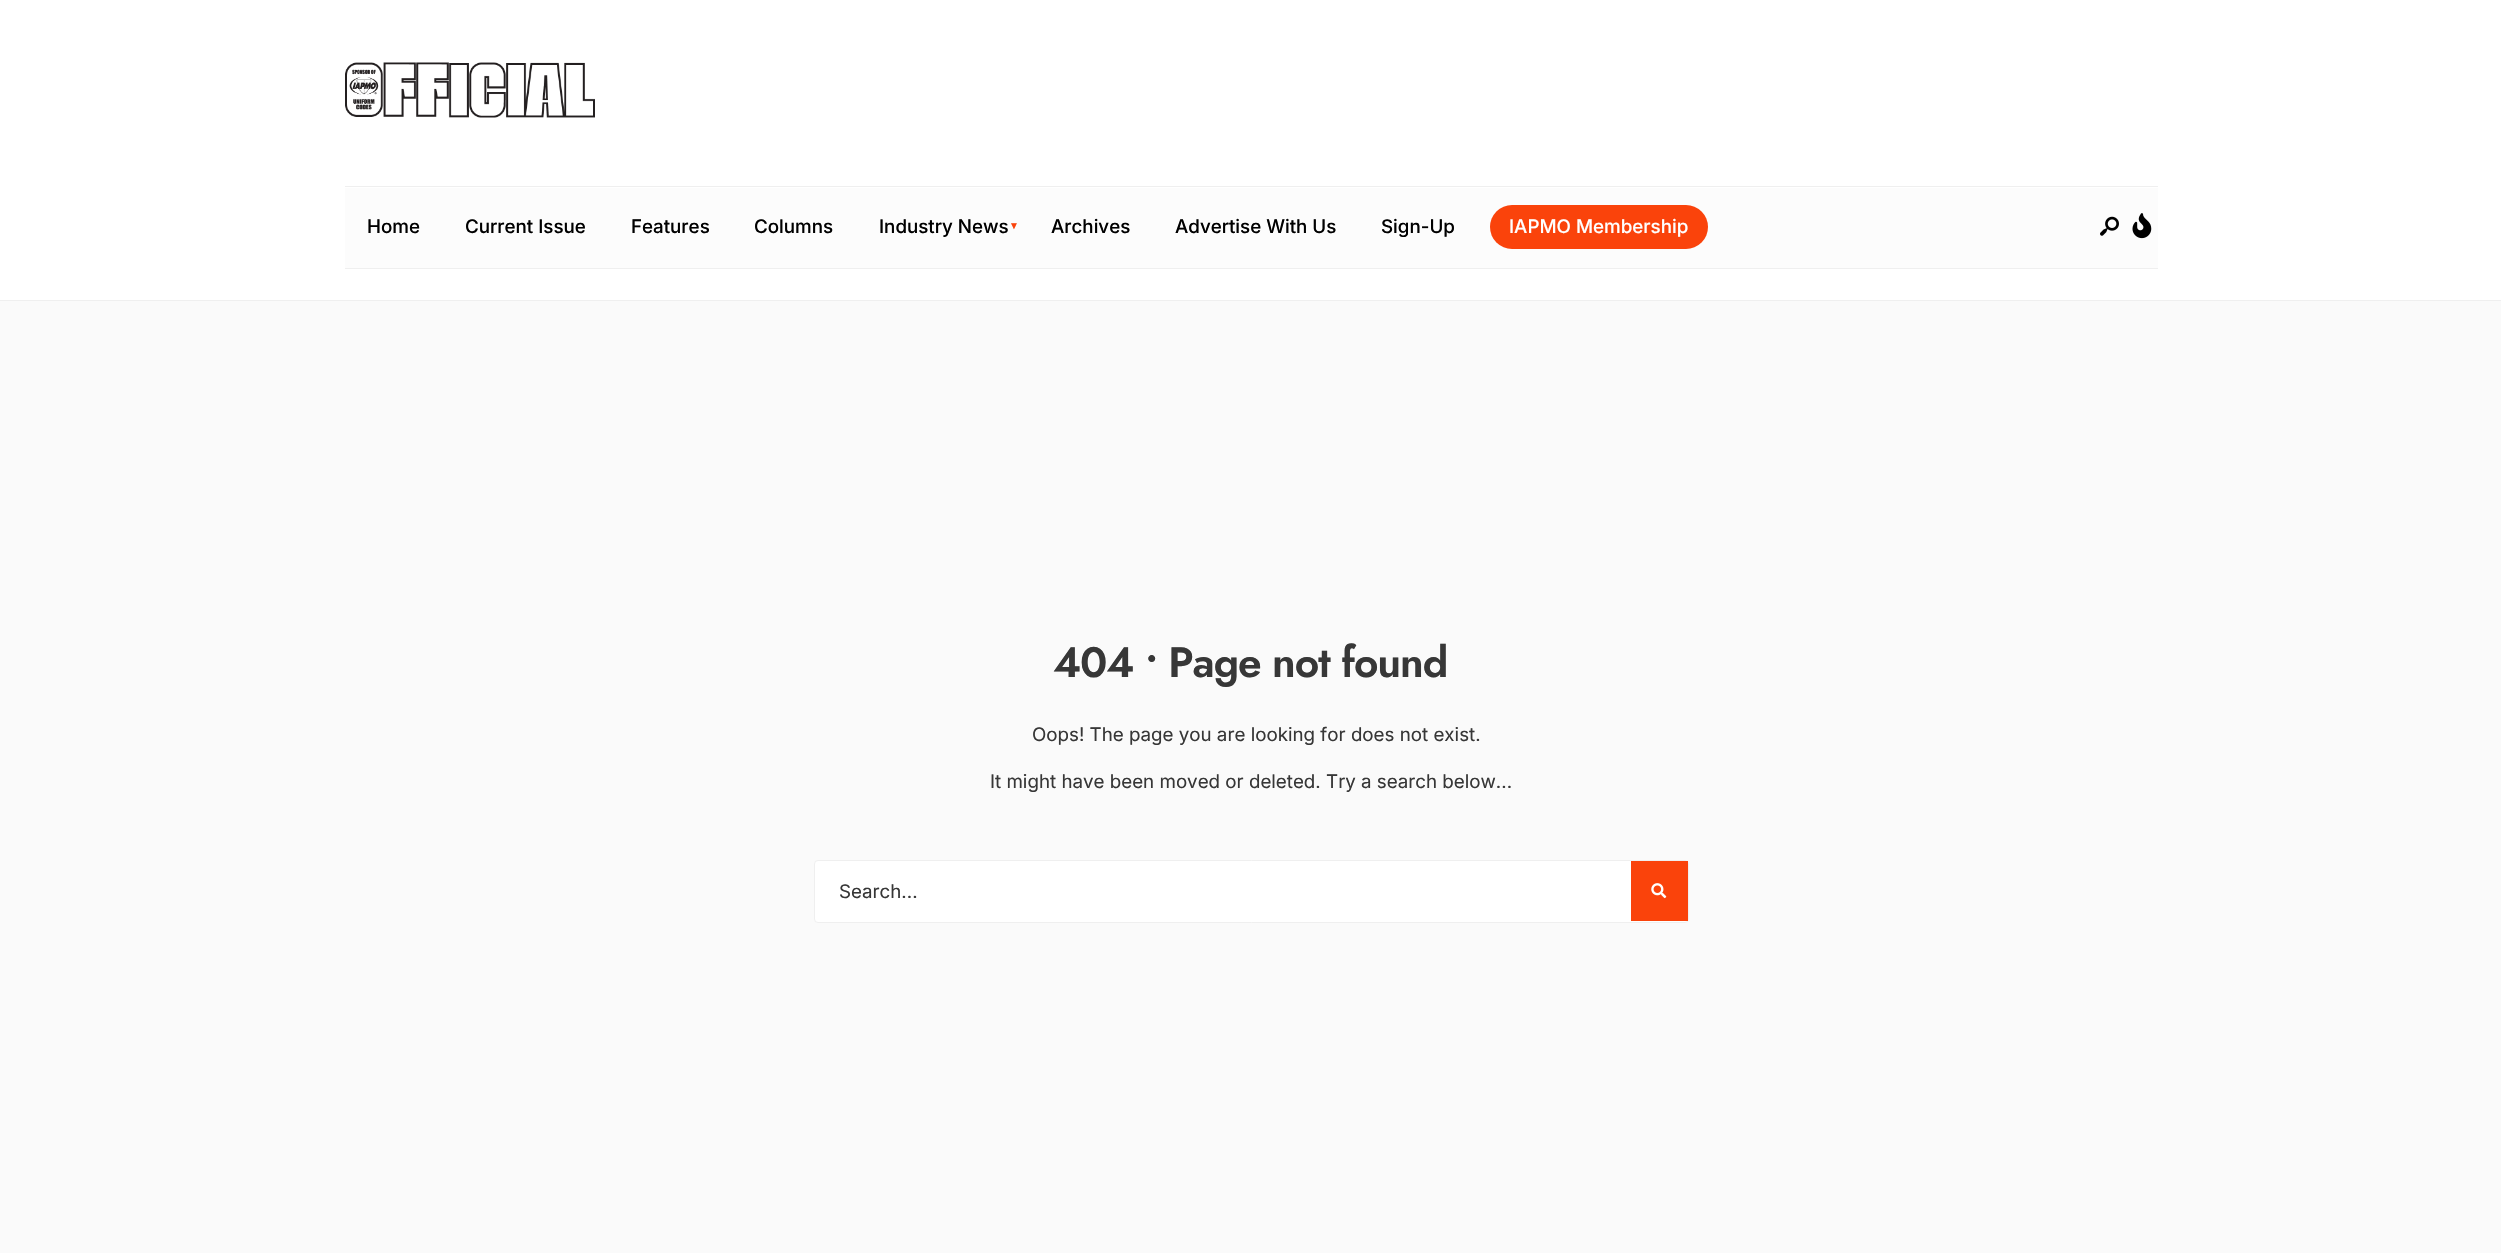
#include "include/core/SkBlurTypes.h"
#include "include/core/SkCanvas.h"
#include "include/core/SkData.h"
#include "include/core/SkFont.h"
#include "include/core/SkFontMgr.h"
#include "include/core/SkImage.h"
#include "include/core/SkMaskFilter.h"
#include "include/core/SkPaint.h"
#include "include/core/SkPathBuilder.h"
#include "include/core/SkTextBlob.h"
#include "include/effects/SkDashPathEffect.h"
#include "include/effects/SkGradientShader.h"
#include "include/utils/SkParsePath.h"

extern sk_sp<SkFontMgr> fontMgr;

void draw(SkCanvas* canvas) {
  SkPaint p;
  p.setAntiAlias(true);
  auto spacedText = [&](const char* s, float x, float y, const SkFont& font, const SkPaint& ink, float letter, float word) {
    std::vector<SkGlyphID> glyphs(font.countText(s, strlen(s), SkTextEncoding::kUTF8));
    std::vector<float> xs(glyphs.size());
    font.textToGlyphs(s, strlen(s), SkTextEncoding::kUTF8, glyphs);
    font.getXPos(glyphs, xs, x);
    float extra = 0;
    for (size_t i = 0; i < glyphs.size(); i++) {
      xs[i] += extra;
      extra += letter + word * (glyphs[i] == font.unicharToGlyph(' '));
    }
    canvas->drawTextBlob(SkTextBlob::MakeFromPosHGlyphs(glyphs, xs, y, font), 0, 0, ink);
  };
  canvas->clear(SkColorSetRGB(250, 250, 250));
  p.setColor(SK_ColorWHITE);
  canvas->drawRect(SkRect::MakeLTRB(0, 0, 2501, 300), p);
  canvas->drawImageRect(SkImages::DeferredFromEncodedData(SkData::MakeFromFileName("images/1.png")), SkRect::MakeLTRB(345, 62, 595, 118), SkSamplingOptions());
  p.setColor(SkColorSetRGB(239, 239, 239));
  canvas->drawRect(SkRect::MakeLTRB(0, 300, 2501, 301), p);
  p.setColor(SkColorSetRGB(252, 252, 252));
  canvas->drawRect(SkRect::MakeLTRB(345, 188, 2158, 268), p);
  p.setColor(SkColorSetRGB(239, 239, 239));
  canvas->drawRect(SkRect::MakeLTRB(345, 186, 2158, 187), p);
  canvas->drawRect(SkRect::MakeLTRB(345, 268, 2158, 269), p);
  p.setColor(SkColorSetRGB(250, 67, 11));
  canvas->drawRoundRect(SkRect::MakeLTRB(1490, 205, 1708, 249), 22, 22, p);
  canvas->drawImageRect(SkImages::DeferredFromEncodedData(SkData::MakeFromFileName("images/2.png")), SkRect::MakeLTRB(2100, 216, 2119, 236), SkSamplingOptions());
  canvas->drawImageRect(SkImages::DeferredFromEncodedData(SkData::MakeFromFileName("images/3.png")), SkRect::MakeLTRB(2132, 213, 2152, 239), SkSamplingOptions());
  p.setColor(SK_ColorWHITE);
  canvas->drawRoundRect(SkRect::MakeLTRB(814.5f, 860.5f, 1688.5f, 922.5f), 3.5f, 3.5f, p);
  p.setStyle(SkPaint::kStroke_Style);
  p.setStrokeWidth(1);
  p.setColor(SkColorSetRGB(239, 239, 239));
  canvas->drawRoundRect(SkRect::MakeLTRB(814.5f, 860.5f, 1688.5f, 922.5f), 3.5f, 3.5f, p);
  p.setStyle(SkPaint::kFill_Style);
  p.setColor(SkColorSetRGB(250, 67, 11));
  canvas->drawRect(SkRect::MakeLTRB(1631, 861, 1688, 921), p);
  canvas->drawImageRect(SkImages::DeferredFromEncodedData(SkData::MakeFromFileName("images/4.png")), SkRect::MakeLTRB(1651, 883, 1667, 899), SkSamplingOptions());
  SkFont font1(fontMgr->matchFamilyStyle("Inter", SkFontStyle(500, SkFontStyle::kNormal_Width, SkFontStyle::kUpright_Slant)), 18.75f);
  font1.setSubpixel(true);
  p.setColor(SK_ColorBLACK);
  canvas->drawString("Home", 367, 233, font1, p);
  canvas->drawString("Current Issue", 465, 233, font1, p);
  canvas->drawString("Features", 631, 233, font1, p);
  canvas->drawString("Columns", 754, 233, font1, p);
  canvas->drawString("Industry News", 879, 233, font1, p);
  SkFont font2(fontMgr->matchFamilyStyle("Liberation Sans", SkFontStyle::Normal()), 10);
  font2.setSubpixel(true);
  p.setColor(SkColorSetRGB(250, 67, 11));
  canvas->drawString("▼", 1009, 229, font2, p);
  p.setColor(SK_ColorBLACK);
  canvas->drawString("Archives", 1051, 233, font1, p);
  canvas->drawString("Advertise With Us", 1175, 233, font1, p);
  canvas->drawString("Sign-Up", 1381, 233, font1, p);
  p.setColor(SK_ColorWHITE);
  canvas->drawString("IAPMO Membership", 1509, 233, font1, p);
  SkFont font3(fontMgr->matchFamilyStyle("Jost", SkFontStyle(600, SkFontStyle::kNormal_Width, SkFontStyle::kUpright_Slant)), 42.5f);
  font3.setSubpixel(true);
  p.setColor(SkColorSetRGB(55, 55, 55));
  spacedText("404 • Page not found", 1053, 677, font3, p, -1.1f, 0);
  SkFont font4(fontMgr->matchFamilyStyle("Inter", SkFontStyle::Normal()), 18.75f);
  font4.setSubpixel(true);
  canvas->drawString("Oops! The page you are looking for does not exist.", 1032, 741, font4, p);
  canvas->drawString("It might have been moved or deleted. Try a search below...", 990, 788, font4, p);
  canvas->drawString("Search...", 839, 898, font4, p);
}
